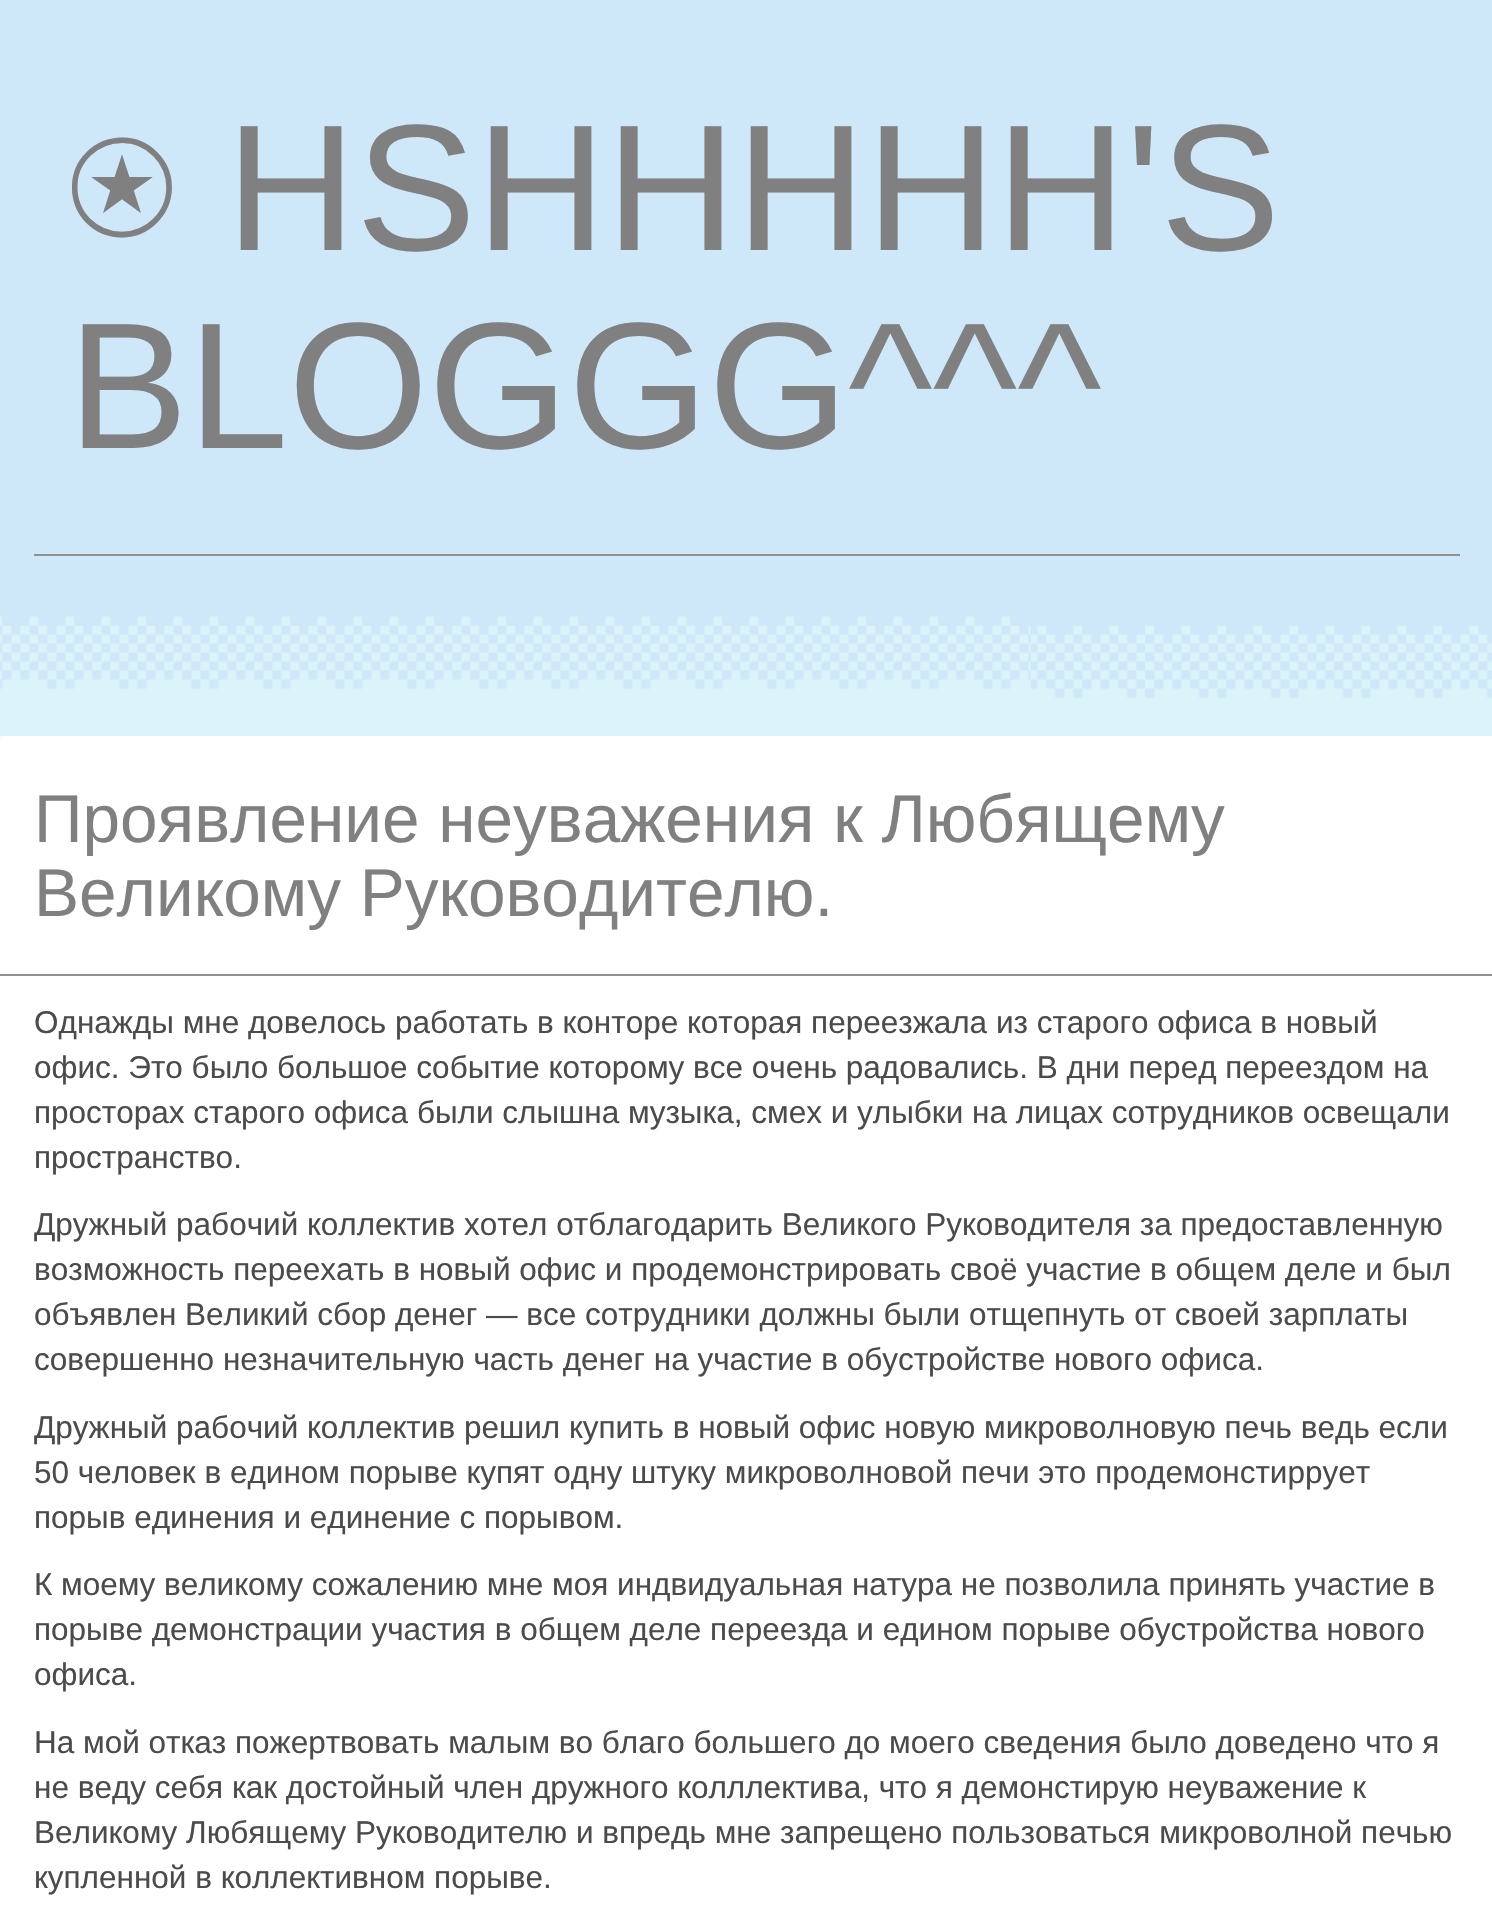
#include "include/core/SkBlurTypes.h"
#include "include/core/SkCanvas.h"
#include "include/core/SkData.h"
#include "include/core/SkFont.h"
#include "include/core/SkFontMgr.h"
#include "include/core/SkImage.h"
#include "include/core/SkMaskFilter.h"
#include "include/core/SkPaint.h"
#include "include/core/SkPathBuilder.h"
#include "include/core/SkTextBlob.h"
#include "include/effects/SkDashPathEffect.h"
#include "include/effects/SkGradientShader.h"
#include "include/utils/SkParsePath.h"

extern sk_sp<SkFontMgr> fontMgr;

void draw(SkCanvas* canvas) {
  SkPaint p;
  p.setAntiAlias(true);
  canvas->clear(SkColorSetRGB(206, 231, 249));
  canvas->drawImageRect(SkImages::DeferredFromEncodedData(SkData::MakeFromFileName("images/1.png")), SkRect::MakeLTRB(0, 616, 1492, 738), SkSamplingOptions());
  p.setColor(SkColorSetRGB(144, 144, 144));
  canvas->drawRect(SkRect::MakeLTRB(34, 554, 1460, 556), p);
  p.setColor(SK_ColorWHITE);
  canvas->drawRoundRect(SkRect::MakeLTRB(0, 736, 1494, 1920), 2, 2, p);
  p.setColor(SkColorSetRGB(144, 144, 144));
  canvas->drawRect(SkRect::MakeLTRB(0, 974, 1492, 976), p);
  SkFont font1(fontMgr->matchFamilyStyle("FreeSerif", SkFontStyle::Normal()), 180);
  font1.setSubpixel(true);
  p.setColor(SkColorSetRGB(128, 128, 128));
  canvas->drawString("⍟", 68, 250, font1, p);
  SkFont font2(fontMgr->matchFamilyStyle("Liberation Sans", SkFontStyle::Normal()), 180);
  font2.setSubpixel(true);
  canvas->drawString("HSHHHHH'S", 226, 250, font2, p);
  canvas->drawString("BLOGGG^^^", 68, 448, font2, p);
  SkFont font3(fontMgr->matchFamilyStyle("Liberation Sans", SkFontStyle::Normal()), 67.5f);
  font3.setSubpixel(true);
  canvas->drawString("Проявление неуважения к Любящему", 34, 842, font3, p);
  canvas->drawString("Великому Руководителю.", 34, 916, font3, p);
  SkFont font4(fontMgr->matchFamilyStyle("Liberation Sans", SkFontStyle::Normal()), 31.5f);
  font4.setSubpixel(true);
  p.setColor(SkColorSetRGB(75, 75, 75));
  canvas->drawString("Однажды мне довелось работать в конторе которая переезжала из старого офиса в новый", 34, 1033, font4, p);
  canvas->drawString("офис. Это было большое событие которому все очень радовались. В дни перед переездом на", 34, 1078, font4, p);
  canvas->drawString("просторах старого офиса были слышна музыка, смех и улыбки на лицах сотрудников освещали", 34, 1123, font4, p);
  canvas->drawString("пространство.", 34, 1168, font4, p);
  canvas->drawString("Дружный рабочий коллектив хотел отблагодарить Великого Руководителя за предоставленную", 34, 1235, font4, p);
  canvas->drawString("возможность переехать в новый офис и продемонстрировать своё участие в общем деле и был", 34, 1280, font4, p);
  canvas->drawString("объявлен Великий сбор денег — все сотрудники должны были отщепнуть от своей зарплаты", 34, 1325, font4, p);
  canvas->drawString("совершенно незначительную часть денег на участие в обустройстве нового офиса.", 34, 1370, font4, p);
  canvas->drawString("Дружный рабочий коллектив решил купить в новый офис новую микроволновую печь ведь если", 34, 1438, font4, p);
  canvas->drawString("50 человек в едином порыве купят одну штуку микроволновой печи это продемонстиррует", 34, 1483, font4, p);
  canvas->drawString("порыв единения и единение с порывом.", 34, 1528, font4, p);
  canvas->drawString("К моему великому сожалению мне моя индвидуальная натура не позволила принять участие в", 34, 1595, font4, p);
  canvas->drawString("порыве демонстрации участия в общем деле переезда и едином порыве обустройства нового", 34, 1640, font4, p);
  canvas->drawString("офиса.", 34, 1685, font4, p);
  canvas->drawString("На мой отказ пожертвовать малым во благо большего до моего сведения было доведено что я", 34, 1753, font4, p);
  canvas->drawString("не веду себя как достойный член дружного колллектива, что я демонстирую неуважение к", 34, 1798, font4, p);
  canvas->drawString("Великому Любящему Руководителю и впредь мне запрещено пользоваться микроволной печью", 34, 1843, font4, p);
  canvas->drawString("купленной в коллективном порыве.", 34, 1888, font4, p);
}
